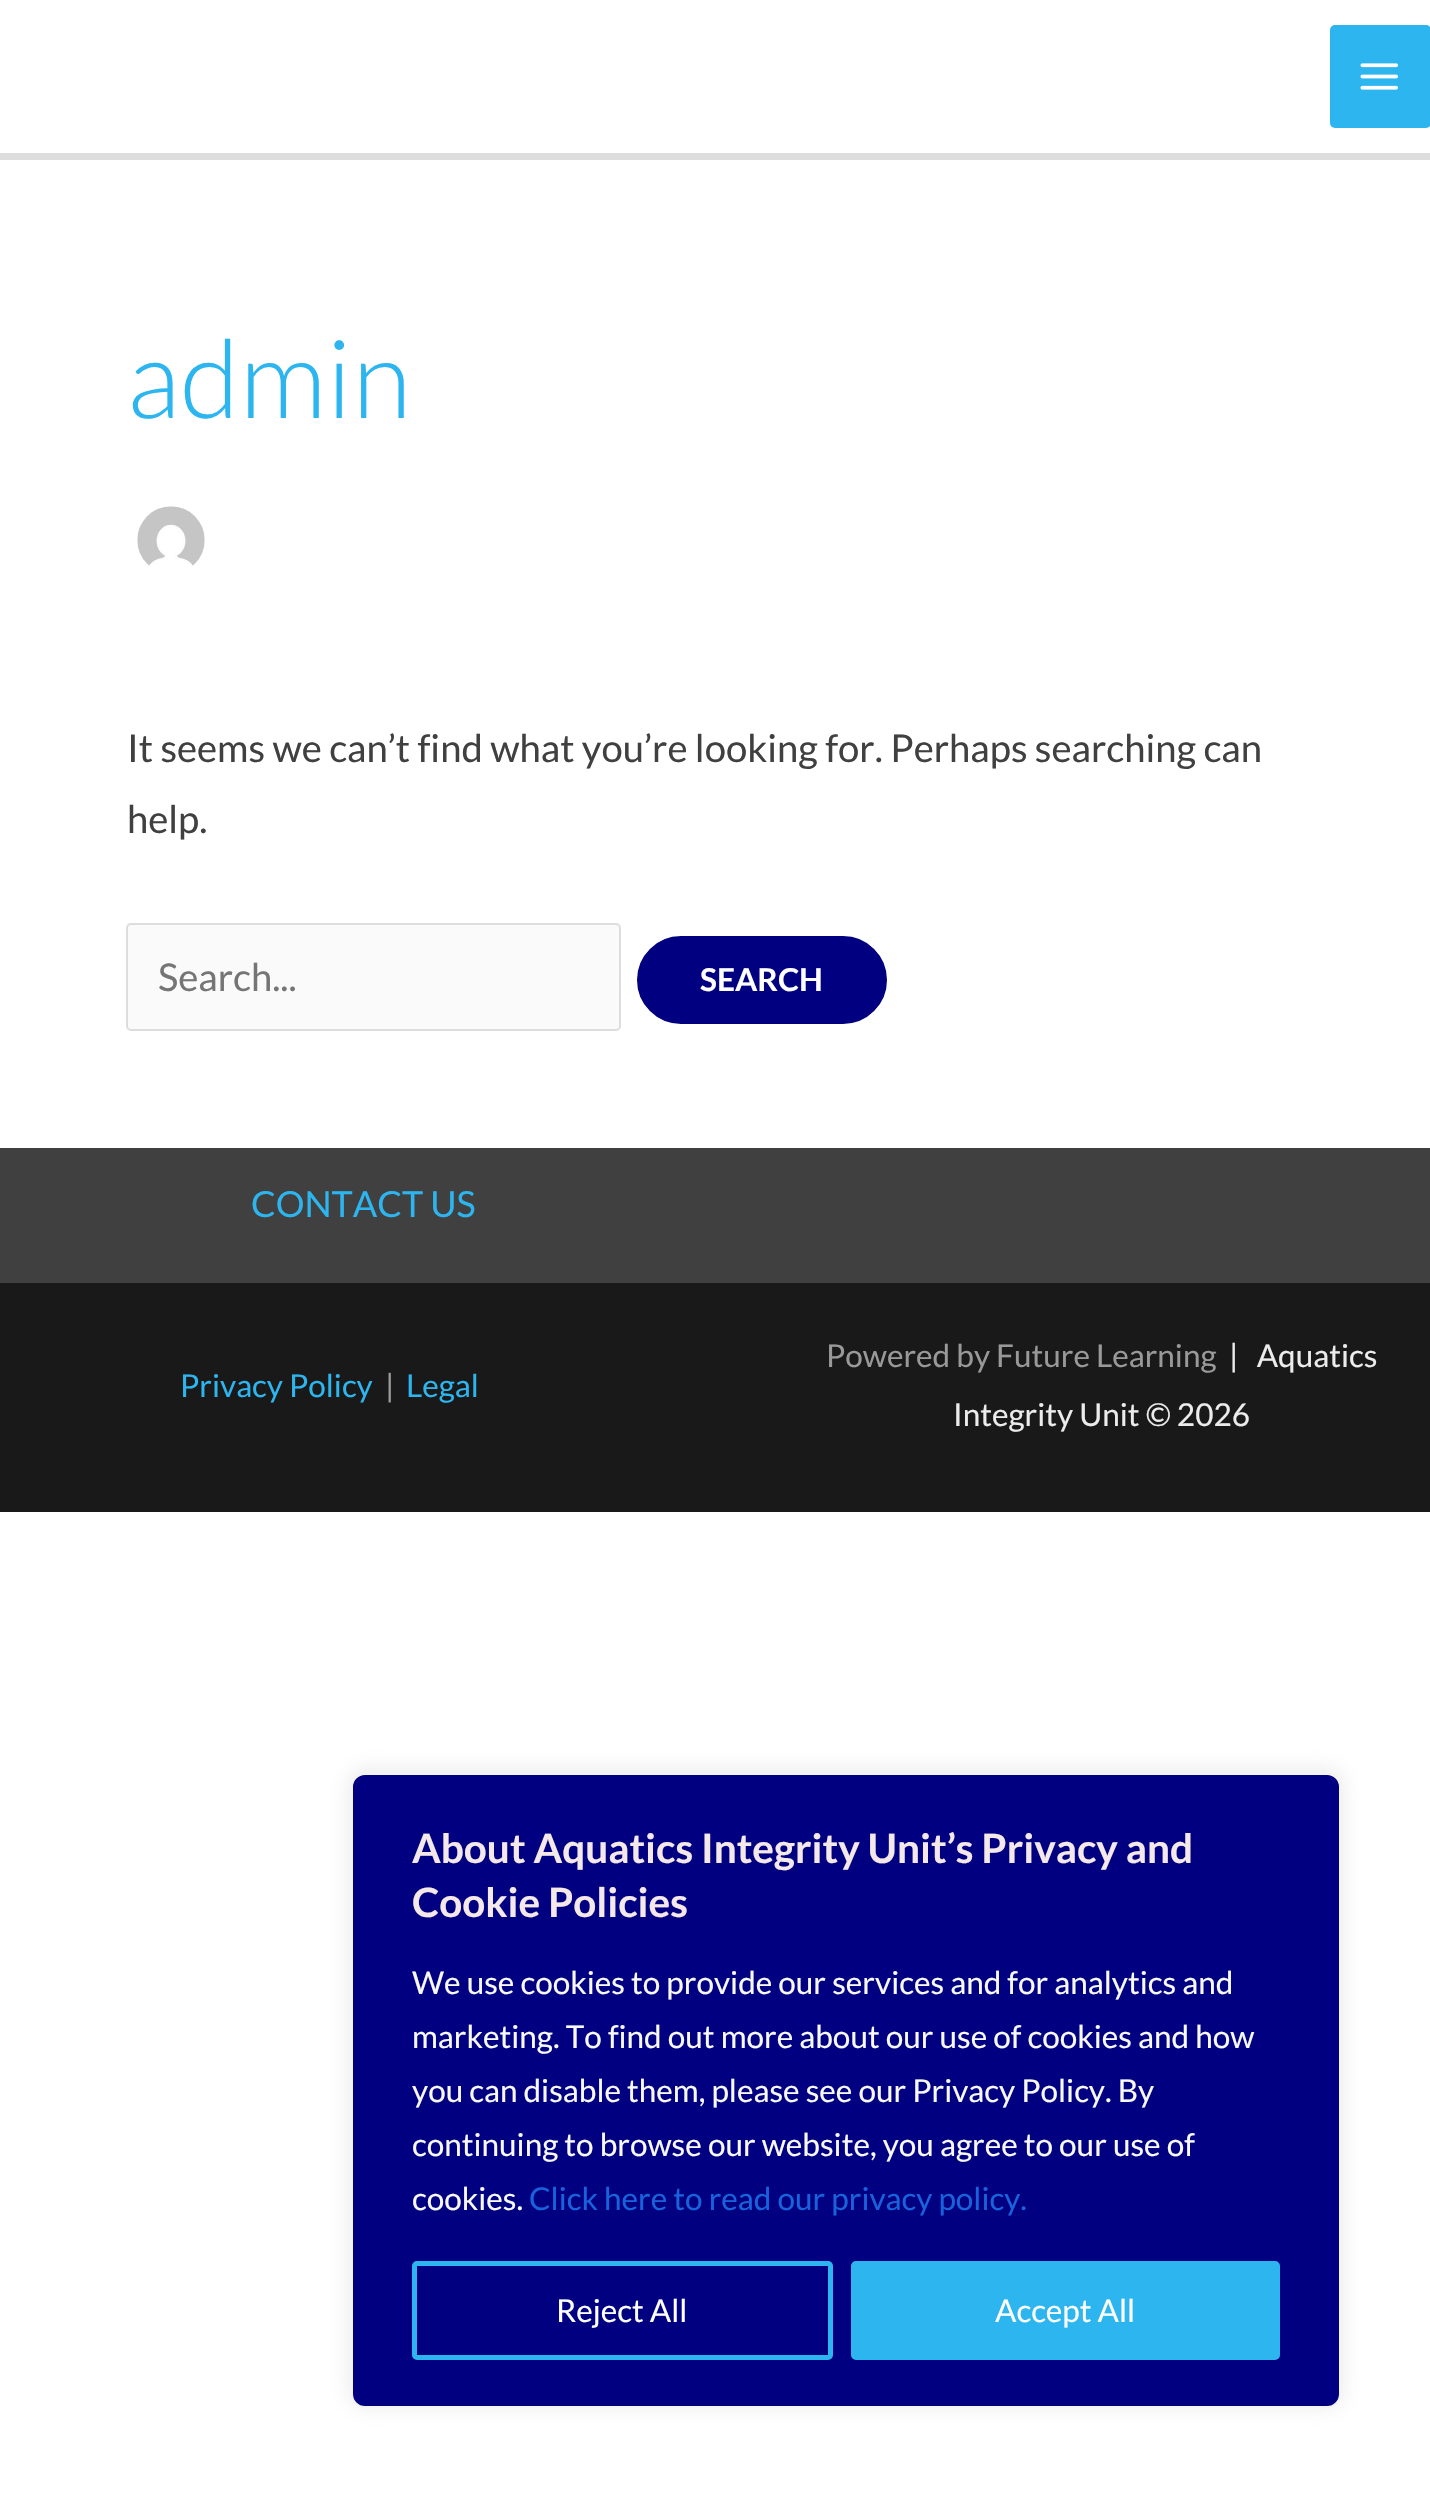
#include "include/core/SkBlurTypes.h"
#include "include/core/SkCanvas.h"
#include "include/core/SkData.h"
#include "include/core/SkFont.h"
#include "include/core/SkFontMgr.h"
#include "include/core/SkImage.h"
#include "include/core/SkMaskFilter.h"
#include "include/core/SkPaint.h"
#include "include/core/SkPathBuilder.h"
#include "include/core/SkTextBlob.h"
#include "include/effects/SkDashPathEffect.h"
#include "include/effects/SkGradientShader.h"
#include "include/utils/SkParsePath.h"

extern sk_sp<SkFontMgr> fontMgr;

void draw(SkCanvas* canvas) {
  SkPaint p;
  p.setAntiAlias(true);
  canvas->clear(SK_ColorWHITE);
  p.setColor(SkColorSetRGB(221, 221, 221));
  canvas->drawRect(SkRect::MakeLTRB(0, 153, 1430, 160), p);
  p.setColor(SkColorSetRGB(45, 181, 239));
  canvas->drawRoundRect(SkRect::MakeLTRB(1330, 25, 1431, 128), 5, 5, p);
  canvas->drawImageRect(SkImages::DeferredFromEncodedData(SkData::MakeFromFileName("images/1.png")), SkRect::MakeLTRB(1360, 63, 1398, 90), SkSamplingOptions());
  canvas->drawImageRect(SkImages::DeferredFromEncodedData(SkData::MakeFromFileName("images/2.png")), SkRect::MakeLTRB(137, 506, 205, 566), SkSamplingOptions());
  p.setColor(SkColorSetRGB(250, 250, 250));
  canvas->drawRoundRect(SkRect::MakeLTRB(127, 924, 620, 1030), 4, 4, p);
  p.setStyle(SkPaint::kStroke_Style);
  p.setStrokeWidth(2);
  p.setColor(SkColorSetRGB(221, 221, 221));
  canvas->drawRoundRect(SkRect::MakeLTRB(127, 924, 620, 1030), 4, 4, p);
  p.setStyle(SkPaint::kFill_Style);
  p.setColor(SkColorSetRGB(0, 0, 128));
  canvas->drawRoundRect(SkRect::MakeLTRB(632.5f, 931.5f, 891.5f, 1028.5f), 48.5f, 48.5f, p);
  p.setStyle(SkPaint::kStroke_Style);
  p.setStrokeWidth(9);
  p.setColor(SK_ColorWHITE);
  canvas->drawRoundRect(SkRect::MakeLTRB(632.5f, 931.5f, 891.5f, 1028.5f), 48.5f, 48.5f, p);
  p.setStyle(SkPaint::kFill_Style);
  p.setColor(SkColorSetRGB(25, 25, 25));
  canvas->drawRect(SkRect::MakeLTRB(0, 1283, 1430, 1512), p);
  p.setColor(SkColorSetRGB(64, 64, 64));
  canvas->drawRect(SkRect::MakeLTRB(0, 1148, 1430, 1283), p);
  p.setColor(SkColorSetARGB(77, 172, 171, 171));
  p.setMaskFilter(SkMaskFilter::MakeBlur(kNormal_SkBlurStyle, 11));
  canvas->drawRoundRect(SkRect::MakeLTRB(351, 1771, 1341, 2405), 14, 14, p);
  p.setMaskFilter(nullptr);
  p.setColor(SkColorSetRGB(0, 0, 128));
  canvas->drawRoundRect(SkRect::MakeLTRB(352, 1774, 1340, 2407), 13, 13, p);
  p.setStyle(SkPaint::kStroke_Style);
  p.setStrokeWidth(2);
  p.setColor(SkColorSetRGB(244, 244, 244));
  canvas->drawRoundRect(SkRect::MakeLTRB(352, 1774, 1340, 2407), 13, 13, p);
  p.setStrokeWidth(5);
  p.setColor(SkColorSetRGB(45, 181, 239));
  canvas->drawRoundRect(SkRect::MakeLTRB(414.5f, 2263.5f, 830.5f, 2357.5f), 2.5f, 2.5f, p);
  p.setStyle(SkPaint::kFill_Style);
  canvas->drawRoundRect(SkRect::MakeLTRB(853.5f, 2263.5f, 1277.5f, 2357.5f), 2.5f, 2.5f, p);
  p.setStyle(SkPaint::kStroke_Style);
  canvas->drawRoundRect(SkRect::MakeLTRB(853.5f, 2263.5f, 1277.5f, 2357.5f), 2.5f, 2.5f, p);
  SkFont font1(fontMgr->matchFamilyStyle("Lato", SkFontStyle(300, SkFontStyle::kNormal_Width, SkFontStyle::kUpright_Slant)), 109);
  font1.setSubpixel(true);
  p.setStyle(SkPaint::kFill_Style);
  canvas->drawString("admin", 127, 418, font1, p);
  SkFont font2(fontMgr->matchFamilyStyle("Lato", SkFontStyle::Normal()), 38.25f);
  font2.setSubpixel(true);
  p.setColor(SkColorSetRGB(64, 64, 64));
  canvas->drawString("It seems we can’t find what you’re looking for. Perhaps searching can", 127, 762, font2, p);
  canvas->drawString("help.", 127, 833, font2, p);
  p.setColor(SkColorSetRGB(117, 117, 117));
  canvas->drawString("Search...", 158, 991, font2, p);
  SkFont font3(fontMgr->matchFamilyStyle("Lato", SkFontStyle::Bold()), 31.5f);
  font3.setSubpixel(true);
  p.setColor(SK_ColorWHITE);
  canvas->drawString("SEARCH", 700, 991, font3, p);
  SkFont font4(fontMgr->matchFamilyStyle("Lato", SkFontStyle::Normal()), 36);
  font4.setSubpixel(true);
  p.setColor(SkColorSetRGB(45, 181, 239));
  canvas->drawString("CONTACT US", 251, 1217, font4, p);
  SkFont font5(fontMgr->matchFamilyStyle("Lato", SkFontStyle::Normal()), 31.5f);
  font5.setSubpixel(true);
  canvas->drawString("Privacy Policy", 180, 1397, font5, p);
  p.setColor(SkColorSetRGB(159, 154, 154));
  canvas->drawString("|", 385, 1397, font5, p);
  p.setColor(SkColorSetRGB(45, 181, 239));
  canvas->drawString("Legal", 406, 1397, font5, p);
  p.setColor(SkColorSetRGB(153, 153, 153));
  canvas->drawString("Powered by Future Learning", 826, 1367, font5, p);
  p.setColor(SkColorSetRGB(236, 236, 236));
  canvas->drawString("|   Aquatics", 1229, 1367, font5, p);
  canvas->drawString("Integrity Unit © 2026", 953, 1426, font5, p);
  SkFont font6(fontMgr->matchFamilyStyle("Lato", SkFontStyle::Bold()), 40.5f);
  font6.setSubpixel(true);
  p.setColor(SkColorSetRGB(245, 232, 232));
  canvas->drawString("About Aquatics Integrity Unit’s Privacy and", 412, 1863, font6, p);
  canvas->drawString("Cookie Policies", 412, 1917, font6, p);
  p.setColor(SkColorSetRGB(249, 249, 249));
  canvas->drawString("We use cookies to provide our services and for analytics and", 412, 1994, font5, p);
  canvas->drawString("marketing. To find out more about our use of cookies and how", 412, 2048, font5, p);
  canvas->drawString("you can disable them, please see our Privacy Policy. By", 412, 2102, font5, p);
  canvas->drawString("continuing to browse our website, you agree to our use of", 412, 2156, font5, p);
  canvas->drawString("cookies.", 412, 2210, font5, p);
  p.setColor(SkColorSetRGB(24, 99, 220));
  canvas->drawString("Click here to read our privacy policy.", 529, 2210, font5, p);
  p.setColor(SK_ColorWHITE);
  canvas->drawString("Reject All", 556, 2322, font5, p);
  canvas->drawString("Accept All", 995, 2322, font5, p);
}
